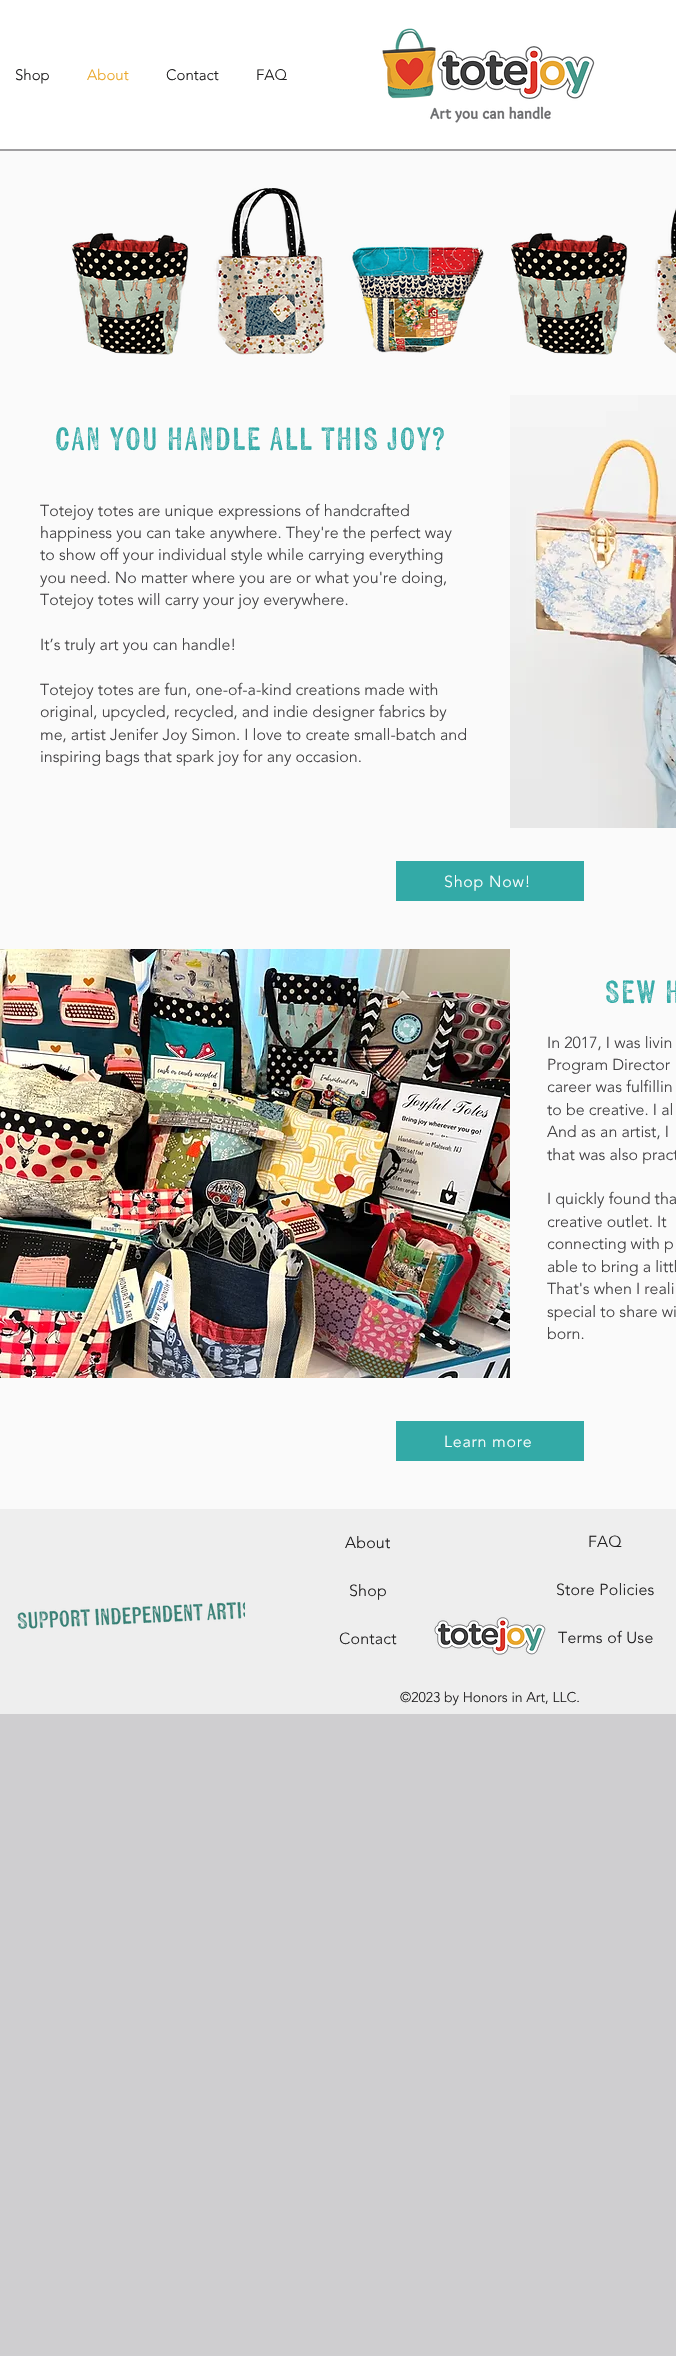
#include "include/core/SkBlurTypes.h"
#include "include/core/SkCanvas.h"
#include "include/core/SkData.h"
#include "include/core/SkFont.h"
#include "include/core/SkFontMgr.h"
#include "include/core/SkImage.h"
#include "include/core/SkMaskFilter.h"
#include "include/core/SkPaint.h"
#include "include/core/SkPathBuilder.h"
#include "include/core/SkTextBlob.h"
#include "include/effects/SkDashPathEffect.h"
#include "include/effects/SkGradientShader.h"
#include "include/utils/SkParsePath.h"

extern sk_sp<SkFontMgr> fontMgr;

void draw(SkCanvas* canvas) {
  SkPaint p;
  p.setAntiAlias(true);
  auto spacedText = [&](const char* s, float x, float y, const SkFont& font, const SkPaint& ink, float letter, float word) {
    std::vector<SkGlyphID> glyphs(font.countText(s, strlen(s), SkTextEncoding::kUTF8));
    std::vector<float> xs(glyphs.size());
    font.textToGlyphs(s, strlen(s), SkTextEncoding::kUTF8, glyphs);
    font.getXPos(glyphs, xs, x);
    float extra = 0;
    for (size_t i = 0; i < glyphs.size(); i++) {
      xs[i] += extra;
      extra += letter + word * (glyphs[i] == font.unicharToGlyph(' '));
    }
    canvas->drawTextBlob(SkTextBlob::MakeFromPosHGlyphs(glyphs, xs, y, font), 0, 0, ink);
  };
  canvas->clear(SkColorSetRGB(207, 206, 208));
  p.setColor(SK_ColorWHITE);
  canvas->drawRect(SkRect::MakeLTRB(0, 0, 676, 149), p);
  p.setColor(SkColorSetRGB(160, 159, 161));
  canvas->drawRect(SkRect::MakeLTRB(0, 149, 676, 151), p);
  canvas->drawImageRect(SkImages::DeferredFromEncodedData(SkData::MakeFromFileName("images/1.png")), SkRect::MakeLTRB(382, 28, 595, 123), SkSamplingOptions());
  p.setColor(SkColorSetRGB(250, 250, 250));
  canvas->drawRect(SkRect::MakeLTRB(0, 151, 676, 1509), p);
  canvas->drawImageRect(SkImages::DeferredFromEncodedData(SkData::MakeFromFileName("images/2.png")), SkRect::MakeLTRB(71, 187, 484, 355), SkSamplingOptions());
  canvas->drawImageRect(SkImages::DeferredFromEncodedData(SkData::MakeFromFileName("images/3.png")), SkRect::MakeLTRB(510, 208, 676, 355), SkSamplingOptions());
  canvas->drawImageRect(SkImages::DeferredFromEncodedData(SkData::MakeFromFileName("images/4.png")), SkRect::MakeLTRB(510, 395, 676, 828), SkSamplingOptions());
  p.setColor(SkColorSetRGB(51, 170, 167));
  canvas->drawRect(SkRect::MakeLTRB(396, 861, 584, 901), p);
  canvas->drawImageRect(SkImages::DeferredFromEncodedData(SkData::MakeFromFileName("images/5.png")), SkRect::MakeLTRB(0, 949, 510, 1378), SkSamplingOptions());
  canvas->drawRect(SkRect::MakeLTRB(396, 1421, 584, 1461), p);
  p.setColor(SkColorSetRGB(238, 238, 238));
  canvas->drawRect(SkRect::MakeLTRB(0, 1509, 676, 1714), p);
  canvas->drawImageRect(SkImages::DeferredFromEncodedData(SkData::MakeFromFileName("images/6.png")), SkRect::MakeLTRB(17, 1602, 245, 1629), SkSamplingOptions());
  canvas->drawImageRect(SkImages::DeferredFromEncodedData(SkData::MakeFromFileName("images/7.png")), SkRect::MakeLTRB(434, 1617, 546, 1655), SkSamplingOptions());
  SkFont font1(fontMgr->matchFamilyStyle("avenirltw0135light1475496", SkFontStyle(300, SkFontStyle::kNormal_Width, SkFontStyle::kUpright_Slant)), 15);
  font1.setSubpixel(true);
  p.setColor(SkColorSetRGB(33, 32, 33));
  canvas->drawString("Shop", 15, 80, font1, p);
  p.setColor(SkColorSetRGB(235, 168, 43));
  canvas->drawString("About", 87, 80, font1, p);
  p.setColor(SkColorSetRGB(33, 32, 33));
  canvas->drawString("Contact", 166, 80, font1, p);
  canvas->drawString("FAQ", 256, 80, font1, p);
  SkFont font2(fontMgr->matchFamilyStyle("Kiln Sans", SkFontStyle::Normal()), 32);
  font2.setSubpixel(true);
  p.setColor(SkColorSetRGB(51, 170, 167));
  spacedText("CAN YOU HANDLE ALL THIS JOY?", 55, 450, font2, p, 1.6f, 0);
  SkFont font3(fontMgr->matchFamilyStyle("avenirltw0135light1475496", SkFontStyle(300, SkFontStyle::kNormal_Width, SkFontStyle::kUpright_Slant)), 16);
  font3.setSubpixel(true);
  p.setColor(SkColorSetRGB(65, 64, 66));
  canvas->drawString("Totejoy totes are unique expressions of handcrafted", 40, 516, font3, p);
  canvas->drawString("happiness you can take anywhere. They're the perfect way", 40, 538, font3, p);
  canvas->drawString("to show off your individual style while carrying everything", 40, 560, font3, p);
  canvas->drawString("you need. No matter where you are or what you're doing,", 40, 583, font3, p);
  canvas->drawString("Totejoy totes will carry your joy everywhere.", 40, 605, font3, p);
  canvas->drawString("It’s truly art you can handle!", 40, 650, font3, p);
  canvas->drawString("Totejoy totes are fun, one-of-a-kind creations made with", 40, 695, font3, p);
  canvas->drawString("original, upcycled, recycled, and indie designer fabrics by", 40, 717, font3, p);
  canvas->drawString("me, artist Jenifer Joy Simon. I love to create small-batch and", 40, 740, font3, p);
  canvas->drawString("inspiring bags that spark joy for any occasion.", 40, 762, font3, p);
  p.setColor(SK_ColorWHITE);
  spacedText("Shop Now!", 444, 887, font3, p, 0.75f, 0);
  p.setColor(SkColorSetRGB(51, 170, 167));
  spacedText("SEW H", 605, 1003, font2, p, 1.6f, 0);
  p.setColor(SkColorSetRGB(65, 64, 66));
  canvas->drawString("In 2017, I was livin", 547, 1048, font3, p);
  canvas->drawString("Program Director", 547, 1070, font3, p);
  canvas->drawString("career was fulfillin", 547, 1092, font3, p);
  canvas->drawString("to be creative. I al", 547, 1115, font3, p);
  canvas->drawString("And as an artist, I", 547, 1137, font3, p);
  canvas->drawString("that was also pract", 547, 1160, font3, p);
  canvas->drawString("I quickly found tha", 547, 1204, font3, p);
  canvas->drawString("creative outlet. It", 547, 1227, font3, p);
  canvas->drawString("connecting with p", 547, 1249, font3, p);
  canvas->drawString("able to bring a littl", 547, 1272, font3, p);
  canvas->drawString("That's when I reali", 547, 1294, font3, p);
  canvas->drawString("special to share wi", 547, 1317, font3, p);
  canvas->drawString("born.", 547, 1339, font3, p);
  p.setColor(SK_ColorWHITE);
  spacedText("Learn more", 444, 1447, font3, p, 0.75f, 0);
  p.setColor(SkColorSetRGB(33, 32, 33));
  spacedText("About", 345, 1548, font3, p, 0.2f, 0);
  spacedText("Shop", 349, 1596, font3, p, 0.2f, 0);
  spacedText("Contact", 339, 1644, font3, p, 0.2f, 0);
  spacedText("FAQ", 588, 1547, font3, p, 0.2f, 0);
  spacedText("Store Policies", 556, 1595, font3, p, 0.2f, 0);
  spacedText("Terms of Use", 558, 1643, font3, p, 0.2f, 0);
  SkFont font4(fontMgr->matchFamilyStyle("avenirltw0135light1475496", SkFontStyle(300, SkFontStyle::kNormal_Width, SkFontStyle::kUpright_Slant)), 14);
  font4.setSubpixel(true);
  canvas->drawString("©2023 by Honors in Art, LLC.", 400, 1702, font4, p);
}
